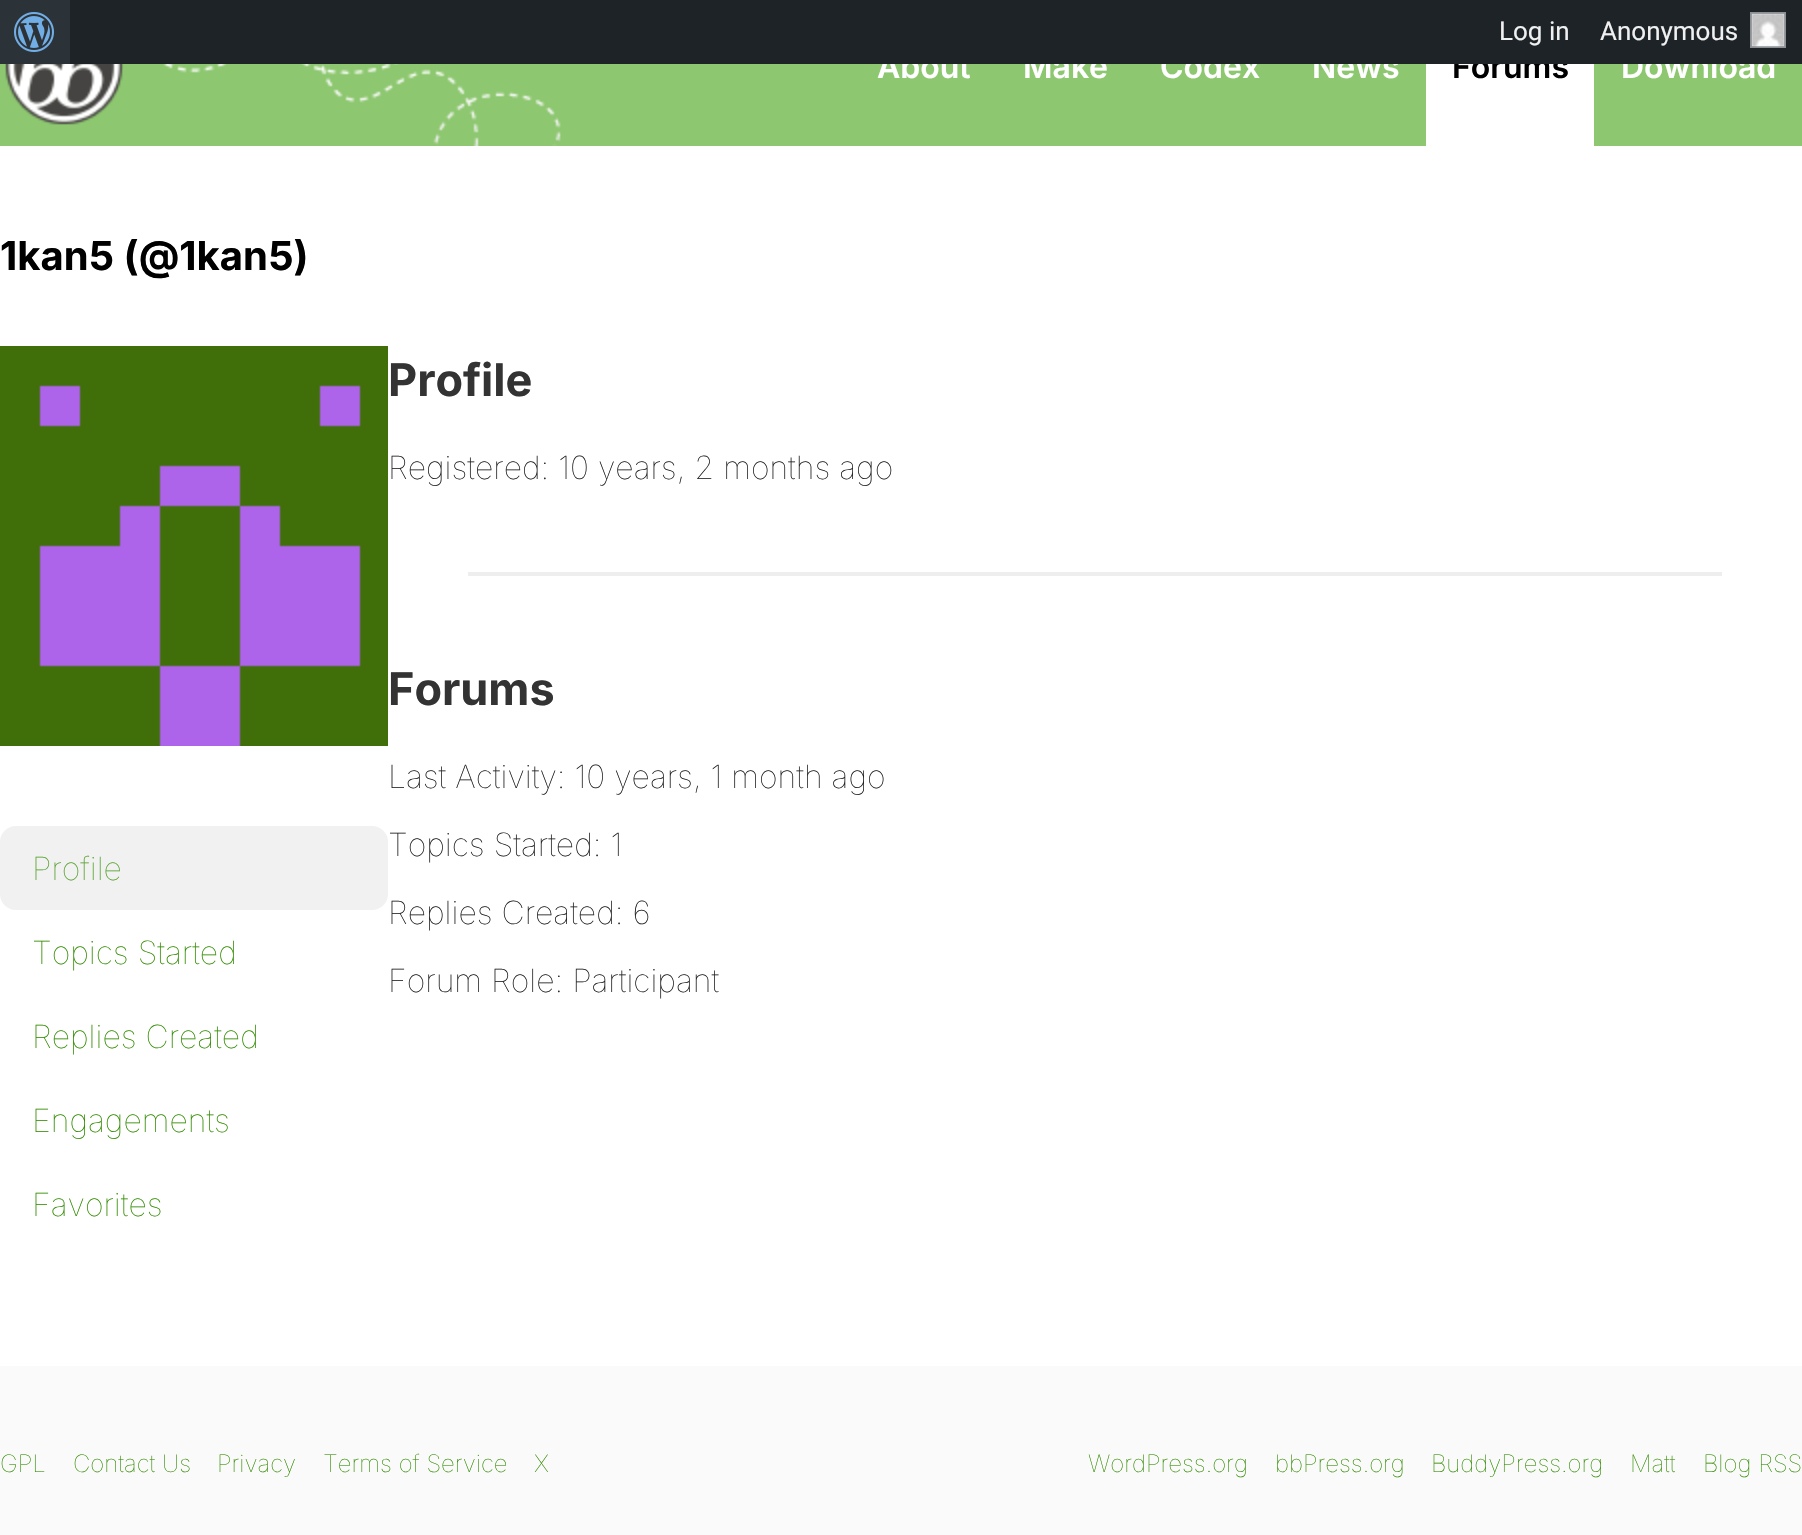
#include "include/core/SkBlurTypes.h"
#include "include/core/SkCanvas.h"
#include "include/core/SkData.h"
#include "include/core/SkFont.h"
#include "include/core/SkFontMgr.h"
#include "include/core/SkImage.h"
#include "include/core/SkMaskFilter.h"
#include "include/core/SkPaint.h"
#include "include/core/SkPathBuilder.h"
#include "include/core/SkTextBlob.h"
#include "include/effects/SkDashPathEffect.h"
#include "include/effects/SkGradientShader.h"
#include "include/utils/SkParsePath.h"

extern sk_sp<SkFontMgr> fontMgr;

void draw(SkCanvas* canvas) {
  SkPaint p;
  p.setAntiAlias(true);
  canvas->clear(SK_ColorWHITE);
  p.setColor(SkColorSetRGB(44, 51, 56));
  canvas->drawRect(SkRect::MakeLTRB(0, 0, 70, 64), p);
  canvas->drawImageRect(SkImages::DeferredFromEncodedData(SkData::MakeFromFileName("images/1.png")), SkRect::MakeLTRB(14, 12, 54, 52), SkSamplingOptions());
  p.setColor(SkColorSetRGB(141, 199, 112));
  canvas->drawRect(SkRect::MakeLTRB(0, 64, 1802, 146), p);
  canvas->drawImageRect(SkImages::DeferredFromEncodedData(SkData::MakeFromFileName("images/3.png")), SkRect::MakeLTRB(163, 64, 561, 146), SkSamplingOptions());
  canvas->drawImageRect(SkImages::DeferredFromEncodedData(SkData::MakeFromFileName("images/4.png")), SkRect::MakeLTRB(5, 64, 124, 125), SkSamplingOptions());
  p.setColor(SK_ColorWHITE);
  canvas->drawRect(SkRect::MakeLTRB(1426, 64, 1594, 146), p);
  p.setColor(SkColorSetRGB(238, 238, 238));
  canvas->drawRect(SkRect::MakeLTRB(468, 572, 1722, 576), p);
  canvas->drawImageRect(SkImages::DeferredFromEncodedData(SkData::MakeFromFileName("images/5.png")), SkRect::MakeLTRB(0, 346, 388, 746), SkSamplingOptions());
  p.setColor(SkColorSetRGB(241, 241, 241));
  canvas->drawRoundRect(SkRect::MakeLTRB(0, 826, 388, 910), 16, 16, p);
  p.setColor(SkColorSetRGB(250, 250, 250));
  canvas->drawRect(SkRect::MakeLTRB(0, 1366, 1802, 1535), p);
  SkFont font1(fontMgr->matchFamilyStyle("Inter", SkFontStyle(600, SkFontStyle::kNormal_Width, SkFontStyle::kUpright_Slant)), 32);
  font1.setSubpixel(true);
  p.setColor(SK_ColorWHITE);
  canvas->drawString("About", 877, 78, font1, p);
  canvas->drawString("Make", 1023, 78, font1, p);
  canvas->drawString("Codex", 1160, 78, font1, p);
  canvas->drawString("News", 1312, 78, font1, p);
  p.setColor(SK_ColorBLACK);
  canvas->drawString("Forums", 1452, 78, font1, p);
  p.setColor(SK_ColorWHITE);
  canvas->drawString("Download", 1621, 78, font1, p);
  p.setColor(SkColorSetRGB(29, 35, 39));
  canvas->drawRect(SkRect::MakeLTRB(70, 0, 1802, 64), p);
  p.setColor(SkColorSetRGB(240, 240, 241));
  canvas->drawRect(SkRect::MakeLTRB(1751, 13, 1785, 47), p);
  p.setStyle(SkPaint::kStroke_Style);
  p.setStrokeWidth(2);
  p.setColor(SkColorSetRGB(140, 143, 148));
  canvas->drawRect(SkRect::MakeLTRB(1751, 13, 1785, 47), p);
  canvas->drawImageRect(SkImages::DeferredFromEncodedData(SkData::MakeFromFileName("images/2.png")), SkRect::MakeLTRB(1751, 13, 1785, 47), SkSamplingOptions());
  SkFont font2(fontMgr->matchFamilyStyle("Roboto", SkFontStyle::Normal()), 26);
  font2.setSubpixel(true);
  p.setStyle(SkPaint::kFill_Style);
  p.setColor(SkColorSetRGB(240, 240, 241));
  canvas->drawString("Anonymous", 1600, 40, font2, p);
  canvas->drawString("Log in", 1499, 40, font2, p);
  SkFont font3(fontMgr->matchFamilyStyle("Inter", SkFontStyle::Bold()), 40);
  font3.setSubpixel(true);
  p.setColor(SK_ColorBLACK);
  canvas->drawString("1kan5 (@1kan5)", 0, 270, font3, p);
  SkFont font4(fontMgr->matchFamilyStyle("Inter", SkFontStyle::Bold()), 45);
  font4.setSubpixel(true);
  p.setColor(SkColorSetRGB(51, 51, 51));
  canvas->drawString("Profile", 388, 396, font4, p);
  SkFont font5(fontMgr->matchFamilyStyle("Inter", SkFontStyle(100, SkFontStyle::kNormal_Width, SkFontStyle::kUpright_Slant)), 32);
  font5.setSubpixel(true);
  p.setColor(SkColorSetRGB(34, 34, 34));
  canvas->drawString("Registered: 10 years, 2 months ago", 388, 479, font5, p);
  p.setColor(SkColorSetRGB(51, 51, 51));
  canvas->drawString("Forums", 388, 705, font4, p);
  p.setColor(SkColorSetRGB(34, 34, 34));
  canvas->drawString("Last Activity: 10 years, 1 month ago", 388, 788, font5, p);
  canvas->drawString("Topics Started: 1", 388, 856, font5, p);
  canvas->drawString("Replies Created: 6", 388, 924, font5, p);
  canvas->drawString("Forum Role: Participant", 388, 992, font5, p);
  p.setColor(SkColorSetRGB(91, 163, 51));
  canvas->drawString("Profile", 32, 880, font5, p);
  p.setColor(SkColorSetRGB(50, 140, 0));
  canvas->drawString("Topics Started", 32, 964, font5, p);
  canvas->drawString("Replies Created", 32, 1048, font5, p);
  canvas->drawString("Engagements", 32, 1132, font5, p);
  canvas->drawString("Favorites", 32, 1216, font5, p);
  SkFont font6(fontMgr->matchFamilyStyle("Inter", SkFontStyle(100, SkFontStyle::kNormal_Width, SkFontStyle::kUpright_Slant)), 24);
  font6.setSubpixel(true);
  canvas->drawString("GPL", 0, 1472, font6, p);
  canvas->drawString("Contact Us", 73, 1472, font6, p);
  canvas->drawString("Privacy", 217, 1472, font6, p);
  canvas->drawString("Terms of Service", 323, 1472, font6, p);
  canvas->drawString("X", 534, 1472, font6, p);
  canvas->drawString("WordPress.org", 1088, 1472, font6, p);
  canvas->drawString("bbPress.org", 1275, 1472, font6, p);
  canvas->drawString("BuddyPress.org", 1431, 1472, font6, p);
  canvas->drawString("Matt", 1630, 1472, font6, p);
  canvas->drawString("Blog RSS", 1703, 1472, font6, p);
}
